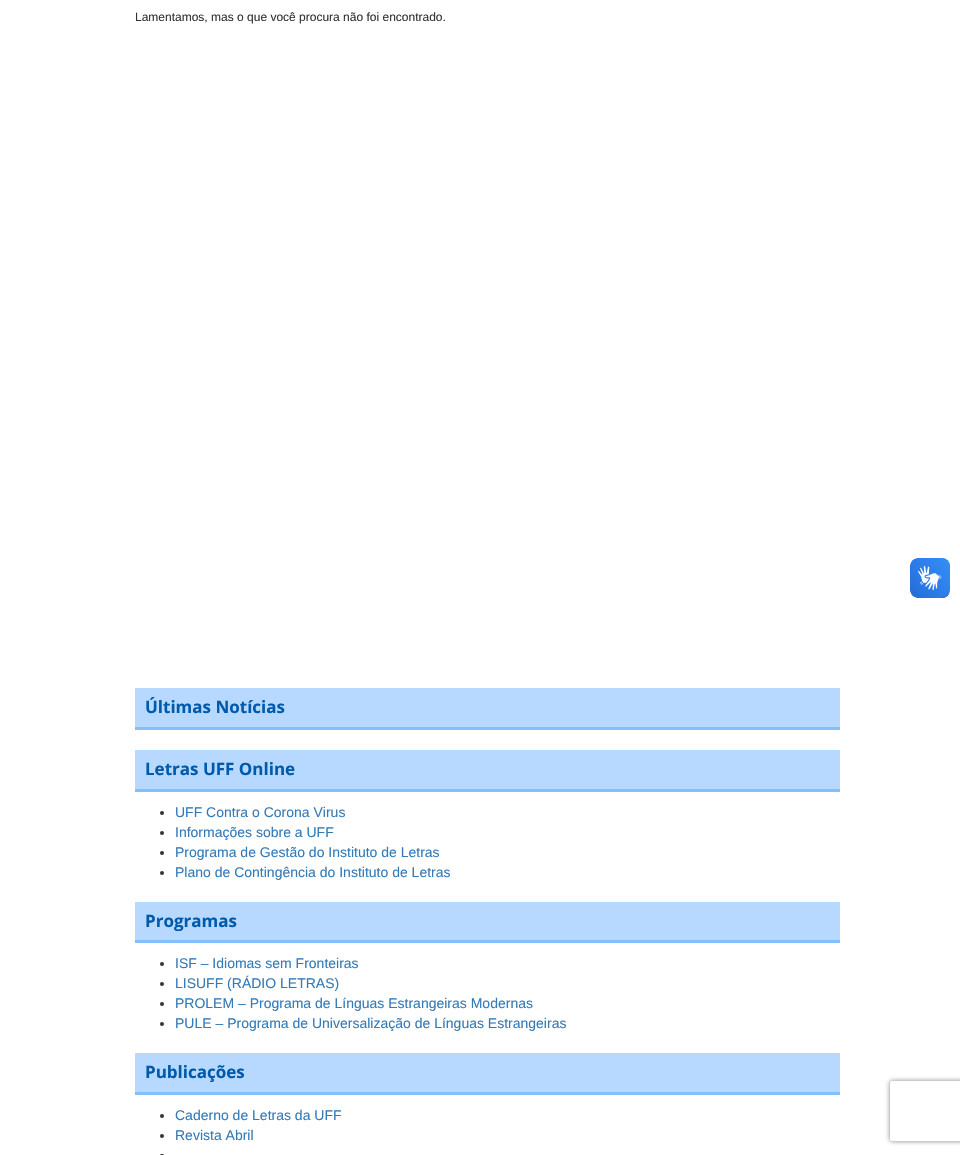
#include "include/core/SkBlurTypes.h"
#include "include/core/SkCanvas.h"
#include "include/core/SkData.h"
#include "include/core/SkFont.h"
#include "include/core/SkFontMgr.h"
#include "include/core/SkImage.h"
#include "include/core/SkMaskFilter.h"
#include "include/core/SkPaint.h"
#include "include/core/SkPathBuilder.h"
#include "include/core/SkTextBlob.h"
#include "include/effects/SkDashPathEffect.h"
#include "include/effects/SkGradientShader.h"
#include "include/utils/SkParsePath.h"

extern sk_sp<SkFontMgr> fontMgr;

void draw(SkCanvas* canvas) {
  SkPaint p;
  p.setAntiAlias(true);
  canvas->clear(SK_ColorWHITE);
  p.setColor(SkColorSetRGB(183, 217, 255));
  canvas->drawRect(SkRect::MakeLTRB(135, 688, 840, 727), p);
  p.setColor(SkColorSetRGB(132, 190, 255));
  canvas->drawRect(SkRect::MakeLTRB(135, 727, 840, 730), p);
  p.setColor(SkColorSetRGB(183, 217, 255));
  canvas->drawRect(SkRect::MakeLTRB(135, 750, 840, 789), p);
  p.setColor(SkColorSetRGB(132, 190, 255));
  canvas->drawRect(SkRect::MakeLTRB(135, 789, 840, 792), p);
  p.setColor(SkColorSetRGB(51, 51, 51));
  canvas->drawCircle(162, 813, 2, p);
  canvas->drawCircle(162, 833, 2, p);
  canvas->drawCircle(162, 853, 2, p);
  canvas->drawCircle(162, 873, 2, p);
  p.setColor(SkColorSetRGB(183, 217, 255));
  canvas->drawRect(SkRect::MakeLTRB(135, 902, 840, 940), p);
  p.setColor(SkColorSetRGB(132, 190, 255));
  canvas->drawRect(SkRect::MakeLTRB(135, 940, 840, 943), p);
  p.setColor(SkColorSetRGB(51, 51, 51));
  canvas->drawCircle(162, 964, 2, p);
  canvas->drawCircle(162, 984, 2, p);
  canvas->drawCircle(162, 1004, 2, p);
  canvas->drawCircle(162, 1024, 2, p);
  p.setColor(SkColorSetRGB(183, 217, 255));
  canvas->drawRect(SkRect::MakeLTRB(135, 1053, 840, 1092), p);
  p.setColor(SkColorSetRGB(132, 190, 255));
  canvas->drawRect(SkRect::MakeLTRB(135, 1092, 840, 1095), p);
  p.setColor(SkColorSetRGB(51, 51, 51));
  canvas->drawCircle(162, 1116, 2, p);
  canvas->drawCircle(162, 1136, 2, p);
  canvas->drawRoundRect(SkRect::MakeLTRB(160, 1154, 164, 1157), 2, 2, p);
  canvas->drawImageRect(SkImages::DeferredFromEncodedData(SkData::MakeFromFileName("images/1.png")), SkRect::MakeLTRB(910, 558, 950, 598), SkSamplingOptions());
  canvas->drawImageRect(SkImages::DeferredFromEncodedData(SkData::MakeFromFileName("images/2.png")), SkRect::MakeLTRB(910, 558, 950, 598), SkSamplingOptions());
  canvas->save();
  canvas->clipPath(SkPathBuilder(SkPathFillType::kEvenOdd).moveTo(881, 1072).lineTo(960, 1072).lineTo(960, 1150).lineTo(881, 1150).close().moveTo(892, 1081).lineTo(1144, 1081).cubicTo(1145, 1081, 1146, 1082, 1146, 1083).lineTo(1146, 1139).cubicTo(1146, 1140, 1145, 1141, 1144, 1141).lineTo(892, 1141).cubicTo(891, 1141, 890, 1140, 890, 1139).lineTo(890, 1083).cubicTo(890, 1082, 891, 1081, 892, 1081).close().detach(), true);
  p.setColor(SkColorSetRGB(128, 128, 128));
  p.setMaskFilter(SkMaskFilter::MakeBlur(kNormal_SkBlurStyle, 2.5f));
  canvas->drawRoundRect(SkRect::MakeLTRB(890, 1081, 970, 1141), 2, 2, p);
  p.setMaskFilter(nullptr);
  canvas->restore();
  SkFont font1(fontMgr->matchFamilyStyle("Liberation Sans", SkFontStyle::Normal()), 12);
  font1.setSubpixel(true);
  p.setColor(SkColorSetRGB(51, 51, 51));
  canvas->drawString("Lamentamos, mas o que você procura não foi encontrado.", 135, 21, font1, p);
  SkFont font2(fontMgr->matchFamilyStyle("Open Sans", SkFontStyle::Bold()), 17);
  font2.setSubpixel(true);
  p.setColor(SkColorSetRGB(0, 90, 171));
  canvas->drawString("Últimas Notícias", 145, 713, font2, p);
  canvas->drawString("Letras UFF Online", 145, 775, font2, p);
  SkFont font3(fontMgr->matchFamilyStyle("Liberation Sans", SkFontStyle::Normal()), 14);
  font3.setSubpixel(true);
  p.setColor(SkColorSetRGB(51, 122, 183));
  canvas->drawString("UFF Contra o Corona Virus", 175, 817, font3, p);
  canvas->drawString("Informações sobre a UFF", 175, 837, font3, p);
  canvas->drawString("Programa de Gestão do Instituto de Letras", 175, 857, font3, p);
  canvas->drawString("Plano de Contingência do Instituto de Letras", 175, 877, font3, p);
  p.setColor(SkColorSetRGB(0, 90, 171));
  canvas->drawString("Programas", 145, 927, font2, p);
  p.setColor(SkColorSetRGB(51, 122, 183));
  canvas->drawString("ISF – Idiomas sem Fronteiras", 175, 968, font3, p);
  canvas->drawString("LISUFF (RÁDIO LETRAS)", 175, 988, font3, p);
  canvas->drawString("PROLEM – Programa de Línguas Estrangeiras Modernas", 175, 1008, font3, p);
  canvas->drawString("PULE – Programa de Universalização de Línguas Estrangeiras", 175, 1028, font3, p);
  p.setColor(SkColorSetRGB(0, 90, 171));
  canvas->drawString("Publicações", 145, 1078, font2, p);
  p.setColor(SkColorSetRGB(51, 122, 183));
  canvas->drawString("Caderno de Letras da UFF", 175, 1120, font3, p);
  canvas->drawString("Revista Abril", 175, 1140, font3, p);
}
